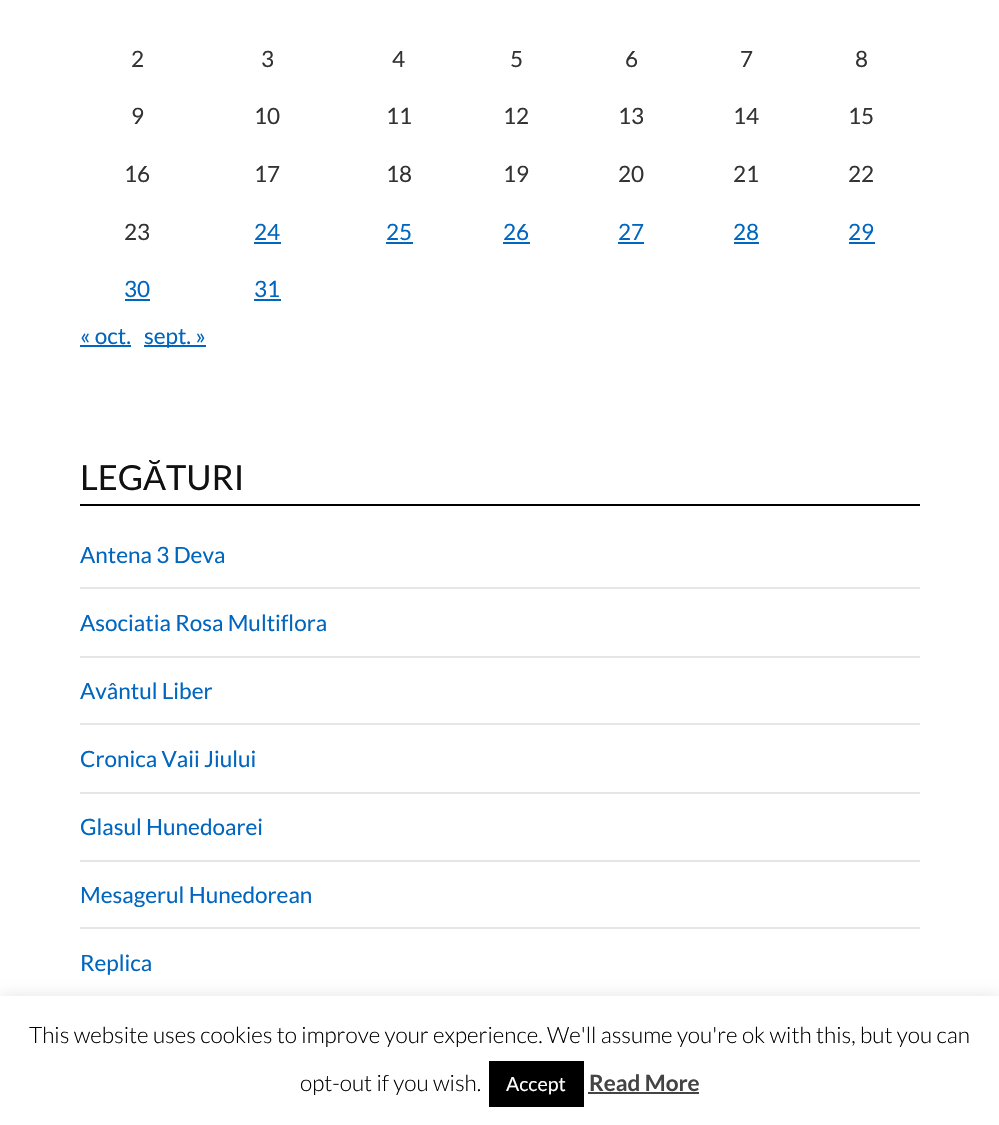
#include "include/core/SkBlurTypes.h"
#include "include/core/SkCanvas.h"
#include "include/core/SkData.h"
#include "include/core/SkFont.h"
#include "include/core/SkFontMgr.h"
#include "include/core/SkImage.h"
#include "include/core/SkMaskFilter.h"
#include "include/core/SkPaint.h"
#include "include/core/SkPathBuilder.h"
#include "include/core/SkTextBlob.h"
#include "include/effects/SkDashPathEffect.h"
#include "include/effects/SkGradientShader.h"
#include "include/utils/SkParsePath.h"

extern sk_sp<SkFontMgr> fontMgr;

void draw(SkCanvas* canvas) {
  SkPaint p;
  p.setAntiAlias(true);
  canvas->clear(SK_ColorWHITE);
  p.setColor(SkColorSetRGB(0, 102, 191));
  canvas->drawRect(SkRect::MakeLTRB(254, 242, 281, 244), p);
  canvas->drawRect(SkRect::MakeLTRB(386, 242, 413, 244), p);
  canvas->drawRect(SkRect::MakeLTRB(503, 242, 530, 244), p);
  canvas->drawRect(SkRect::MakeLTRB(618, 242, 644, 244), p);
  canvas->drawRect(SkRect::MakeLTRB(734, 242, 759, 244), p);
  canvas->drawRect(SkRect::MakeLTRB(849, 242, 875, 244), p);
  canvas->drawRect(SkRect::MakeLTRB(125, 299, 150, 301), p);
  canvas->drawRect(SkRect::MakeLTRB(254, 299, 281, 301), p);
  canvas->drawRect(SkRect::MakeLTRB(80, 345, 131, 347), p);
  canvas->drawRect(SkRect::MakeLTRB(144, 345, 206, 347), p);
  p.setColor(SK_ColorBLACK);
  canvas->drawRect(SkRect::MakeLTRB(80, 504, 920, 506), p);
  p.setColor(SkColorSetRGB(230, 230, 230));
  canvas->drawRect(SkRect::MakeLTRB(80, 587, 920, 589), p);
  canvas->drawRect(SkRect::MakeLTRB(80, 656, 920, 658), p);
  canvas->drawRect(SkRect::MakeLTRB(80, 723, 920, 725), p);
  canvas->drawRect(SkRect::MakeLTRB(80, 792, 920, 794), p);
  canvas->drawRect(SkRect::MakeLTRB(80, 860, 920, 862), p);
  canvas->drawRect(SkRect::MakeLTRB(80, 927, 920, 929), p);
  p.setColor(SkColorSetARGB(77, 172, 171, 171));
  p.setMaskFilter(SkMaskFilter::MakeBlur(kNormal_SkBlurStyle, 7.5f));
  canvas->drawRect(SkRect::MakeLTRB(0, 995, 999, 1124), p);
  p.setMaskFilter(nullptr);
  p.setColor(SK_ColorWHITE);
  canvas->drawRect(SkRect::MakeLTRB(0, 996, 999, 1125), p);
  p.setColor(SK_ColorBLACK);
  canvas->drawRect(SkRect::MakeLTRB(489, 1061, 584, 1107), p);
  p.setColor(SkColorSetRGB(68, 68, 68));
  canvas->drawRect(SkRect::MakeLTRB(588, 1092, 699, 1094), p);
  SkFont font1(fontMgr->matchFamilyStyle("Lato", SkFontStyle::Normal()), 22.5f);
  font1.setSubpixel(true);
  p.setColor(SkColorSetRGB(51, 51, 51));
  canvas->drawString("2", 131, 67, font1, p);
  canvas->drawString("3", 261, 67, font1, p);
  canvas->drawString("4", 392, 67, font1, p);
  canvas->drawString("5", 510, 67, font1, p);
  canvas->drawString("6", 625, 67, font1, p);
  canvas->drawString("7", 740, 67, font1, p);
  canvas->drawString("8", 855, 67, font1, p);
  canvas->drawString("9", 131, 124, font1, p);
  canvas->drawString("10", 254, 124, font1, p);
  canvas->drawString("11", 386, 124, font1, p);
  canvas->drawString("12", 503, 124, font1, p);
  canvas->drawString("13", 618, 124, font1, p);
  canvas->drawString("14", 733, 124, font1, p);
  canvas->drawString("15", 848, 124, font1, p);
  canvas->drawString("16", 124, 182, font1, p);
  canvas->drawString("17", 254, 182, font1, p);
  canvas->drawString("18", 386, 182, font1, p);
  canvas->drawString("19", 503, 182, font1, p);
  canvas->drawString("20", 618, 182, font1, p);
  canvas->drawString("21", 733, 182, font1, p);
  canvas->drawString("22", 848, 182, font1, p);
  canvas->drawString("23", 124, 240, font1, p);
  p.setColor(SkColorSetRGB(0, 102, 191));
  canvas->drawString("24", 254, 240, font1, p);
  canvas->drawString("25", 386, 240, font1, p);
  canvas->drawString("26", 503, 240, font1, p);
  canvas->drawString("27", 618, 240, font1, p);
  canvas->drawString("28", 733, 240, font1, p);
  canvas->drawString("29", 848, 240, font1, p);
  canvas->drawString("30", 124, 297, font1, p);
  canvas->drawString("31", 254, 297, font1, p);
  canvas->drawString("« oct.", 80, 344, font1, p);
  canvas->drawString("sept. »", 144, 344, font1, p);
  SkFont font2(fontMgr->matchFamilyStyle("Lato", SkFontStyle::Normal()), 34.5f);
  font2.setSubpixel(true);
  p.setColor(SkColorSetRGB(17, 17, 17));
  canvas->drawString("LEG", 80, 490, font2, p);
  SkFont font3(fontMgr->matchFamilyStyle("Liberation Sans", SkFontStyle::Normal()), 34.5f);
  font3.setSubpixel(true);
  canvas->drawString("Ă", 143, 490, font3, p);
  canvas->drawString("TURI", 166, 490, font2, p);
  p.setColor(SkColorSetRGB(0, 102, 191));
  canvas->drawString("Antena 3 Deva", 80, 563, font1, p);
  canvas->drawString("Asociatia Rosa Multiflora", 80, 631, font1, p);
  canvas->drawString("Avântul Liber", 80, 699, font1, p);
  canvas->drawString("Cronica Vaii Jiului", 80, 767, font1, p);
  canvas->drawString("Glasul Hunedoarei", 80, 835, font1, p);
  canvas->drawString("Mesagerul Hunedorean", 80, 903, font1, p);
  canvas->drawString("Replica", 80, 971, font1, p);
  SkFont font4(fontMgr->matchFamilyStyle("Lato", SkFontStyle(300, SkFontStyle::kNormal_Width, SkFontStyle::kUpright_Slant)), 22.5f);
  font4.setSubpixel(true);
  p.setColor(SK_ColorBLACK);
  canvas->drawString("This website uses cookies to improve your experience. We'll assume you're ok with this, but you can", 29, 1043, font4, p);
  canvas->drawString("opt-out if you wish.", 300, 1091, font4, p);
  SkFont font5(fontMgr->matchFamilyStyle("Lato", SkFontStyle::Normal()), 19.5f);
  font5.setSubpixel(true);
  p.setColor(SK_ColorWHITE);
  canvas->drawString("Accept", 506, 1091, font5, p);
  SkFont font6(fontMgr->matchFamilyStyle("Lato", SkFontStyle::Bold()), 22.5f);
  font6.setSubpixel(true);
  p.setColor(SkColorSetRGB(68, 68, 68));
  canvas->drawString("Read More", 589, 1091, font6, p);
}
